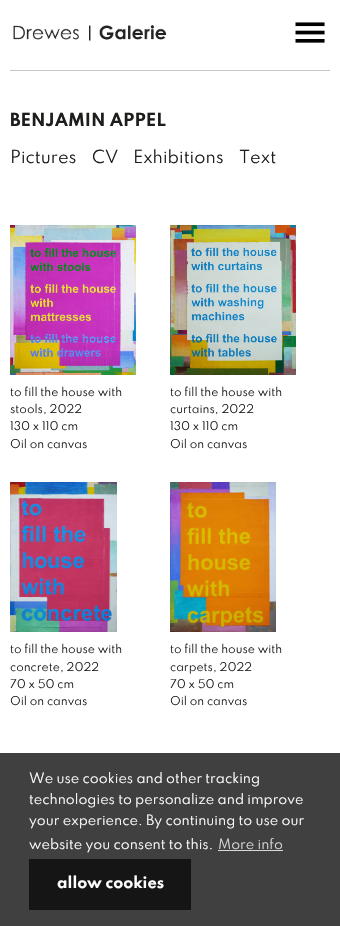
#include "include/core/SkBlurTypes.h"
#include "include/core/SkCanvas.h"
#include "include/core/SkData.h"
#include "include/core/SkFont.h"
#include "include/core/SkFontMgr.h"
#include "include/core/SkImage.h"
#include "include/core/SkMaskFilter.h"
#include "include/core/SkPaint.h"
#include "include/core/SkPathBuilder.h"
#include "include/core/SkTextBlob.h"
#include "include/effects/SkDashPathEffect.h"
#include "include/effects/SkGradientShader.h"
#include "include/utils/SkParsePath.h"

extern sk_sp<SkFontMgr> fontMgr;

void draw(SkCanvas* canvas) {
  SkPaint p;
  p.setAntiAlias(true);
  canvas->clear(SK_ColorWHITE);
  p.setColor(SkColorSetRGB(197, 197, 197));
  canvas->drawRect(SkRect::MakeLTRB(10, 70, 330, 71), p);
  canvas->drawImageRect(SkImages::DeferredFromEncodedData(SkData::MakeFromFileName("images/1.png")), SkRect::MakeLTRB(13, 25, 167, 41), SkSamplingOptions());
  canvas->drawImageRect(SkImages::DeferredFromEncodedData(SkData::MakeFromFileName("images/2.png")), SkRect::MakeLTRB(295, 22, 325, 43), SkSamplingOptions());
  canvas->drawImageRect(SkImages::DeferredFromEncodedData(SkData::MakeFromFileName("images/3.png")), SkRect::MakeLTRB(10, 225, 136, 375), SkSamplingOptions());
  canvas->drawImageRect(SkImages::DeferredFromEncodedData(SkData::MakeFromFileName("images/4.png")), SkRect::MakeLTRB(170, 225, 296, 375), SkSamplingOptions());
  canvas->drawImageRect(SkImages::DeferredFromEncodedData(SkData::MakeFromFileName("images/5.png")), SkRect::MakeLTRB(10, 482, 117, 632), SkSamplingOptions());
  canvas->drawImageRect(SkImages::DeferredFromEncodedData(SkData::MakeFromFileName("images/6.png")), SkRect::MakeLTRB(170, 482, 276, 632), SkSamplingOptions());
  p.setColor(SkColorSetRGB(64, 64, 64));
  canvas->drawRect(SkRect::MakeLTRB(0, 753, 340, 926), p);
  p.setColor(SkColorSetRGB(217, 217, 217));
  canvas->drawRect(SkRect::MakeLTRB(218, 850, 283, 851), p);
  p.setColor(SkColorSetRGB(21, 21, 21));
  canvas->drawRect(SkRect::MakeLTRB(29, 859, 191, 910), p);
  SkFont font1(fontMgr->matchFamilyStyle("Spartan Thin", SkFontStyle(100, SkFontStyle::kNormal_Width, SkFontStyle::kUpright_Slant)), 16);
  font1.setSubpixel(true);
  p.setColor(SkColorSetRGB(29, 29, 27));
  canvas->drawString("BENJAMIN APPEL", 10, 126, font1, p);
  SkFont font2(fontMgr->matchFamilyStyle("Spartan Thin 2", SkFontStyle(100, SkFontStyle::kNormal_Width, SkFontStyle::kUpright_Slant)), 16);
  font2.setSubpixel(true);
  canvas->drawString("Pictures", 10, 163, font2, p);
  canvas->drawString("CV", 92, 163, font2, p);
  canvas->drawString("Exhibitions", 133, 163, font2, p);
  canvas->drawString("Text", 239, 163, font2, p);
  SkFont font3(fontMgr->matchFamilyStyle("Spartan Thin 2", SkFontStyle(100, SkFontStyle::kNormal_Width, SkFontStyle::kUpright_Slant)), 10.75f);
  font3.setSubpixel(true);
  canvas->drawString("to fill the house with", 10, 396, font3, p);
  canvas->drawString("stools, 2022", 10, 413, font3, p);
  canvas->drawString("130 x 110 cm", 10, 430, font3, p);
  canvas->drawString("Oil on canvas", 10, 448, font3, p);
  canvas->drawString("to fill the house with", 170, 396, font3, p);
  canvas->drawString("curtains, 2022", 170, 413, font3, p);
  canvas->drawString("130 x 110 cm", 170, 430, font3, p);
  canvas->drawString("Oil on canvas", 170, 448, font3, p);
  canvas->drawString("to fill the house with", 10, 653, font3, p);
  canvas->drawString("concrete, 2022", 10, 671, font3, p);
  canvas->drawString("70 x 50 cm", 10, 688, font3, p);
  canvas->drawString("Oil on canvas", 10, 705, font3, p);
  canvas->drawString("to fill the house with", 170, 653, font3, p);
  canvas->drawString("carpets, 2022", 170, 671, font3, p);
  canvas->drawString("70 x 50 cm", 170, 688, font3, p);
  canvas->drawString("Oil on canvas", 170, 705, font3, p);
  SkFont font4(fontMgr->matchFamilyStyle("Spartan Thin 2", SkFontStyle(100, SkFontStyle::kNormal_Width, SkFontStyle::kUpright_Slant)), 12.7f);
  font4.setSubpixel(true);
  p.setColor(SK_ColorWHITE);
  canvas->drawString("We use cookies and other tracking", 29, 783, font4, p);
  canvas->drawString("technologies to personalize and improve", 29, 804, font4, p);
  canvas->drawString("your experience. By continuing to use our", 29, 825, font4, p);
  canvas->drawString("website you consent to this.", 29, 849, font4, p);
  p.setColor(SkColorSetRGB(217, 217, 217));
  canvas->drawString("More info", 218, 849, font4, p);
  SkFont font5(fontMgr->matchFamilyStyle("Spartan Thin", SkFontStyle(100, SkFontStyle::kNormal_Width, SkFontStyle::kUpright_Slant)), 14.5f);
  font5.setSubpixel(true);
  p.setColor(SK_ColorWHITE);
  canvas->drawString("allow cookies", 57, 888, font5, p);
}
